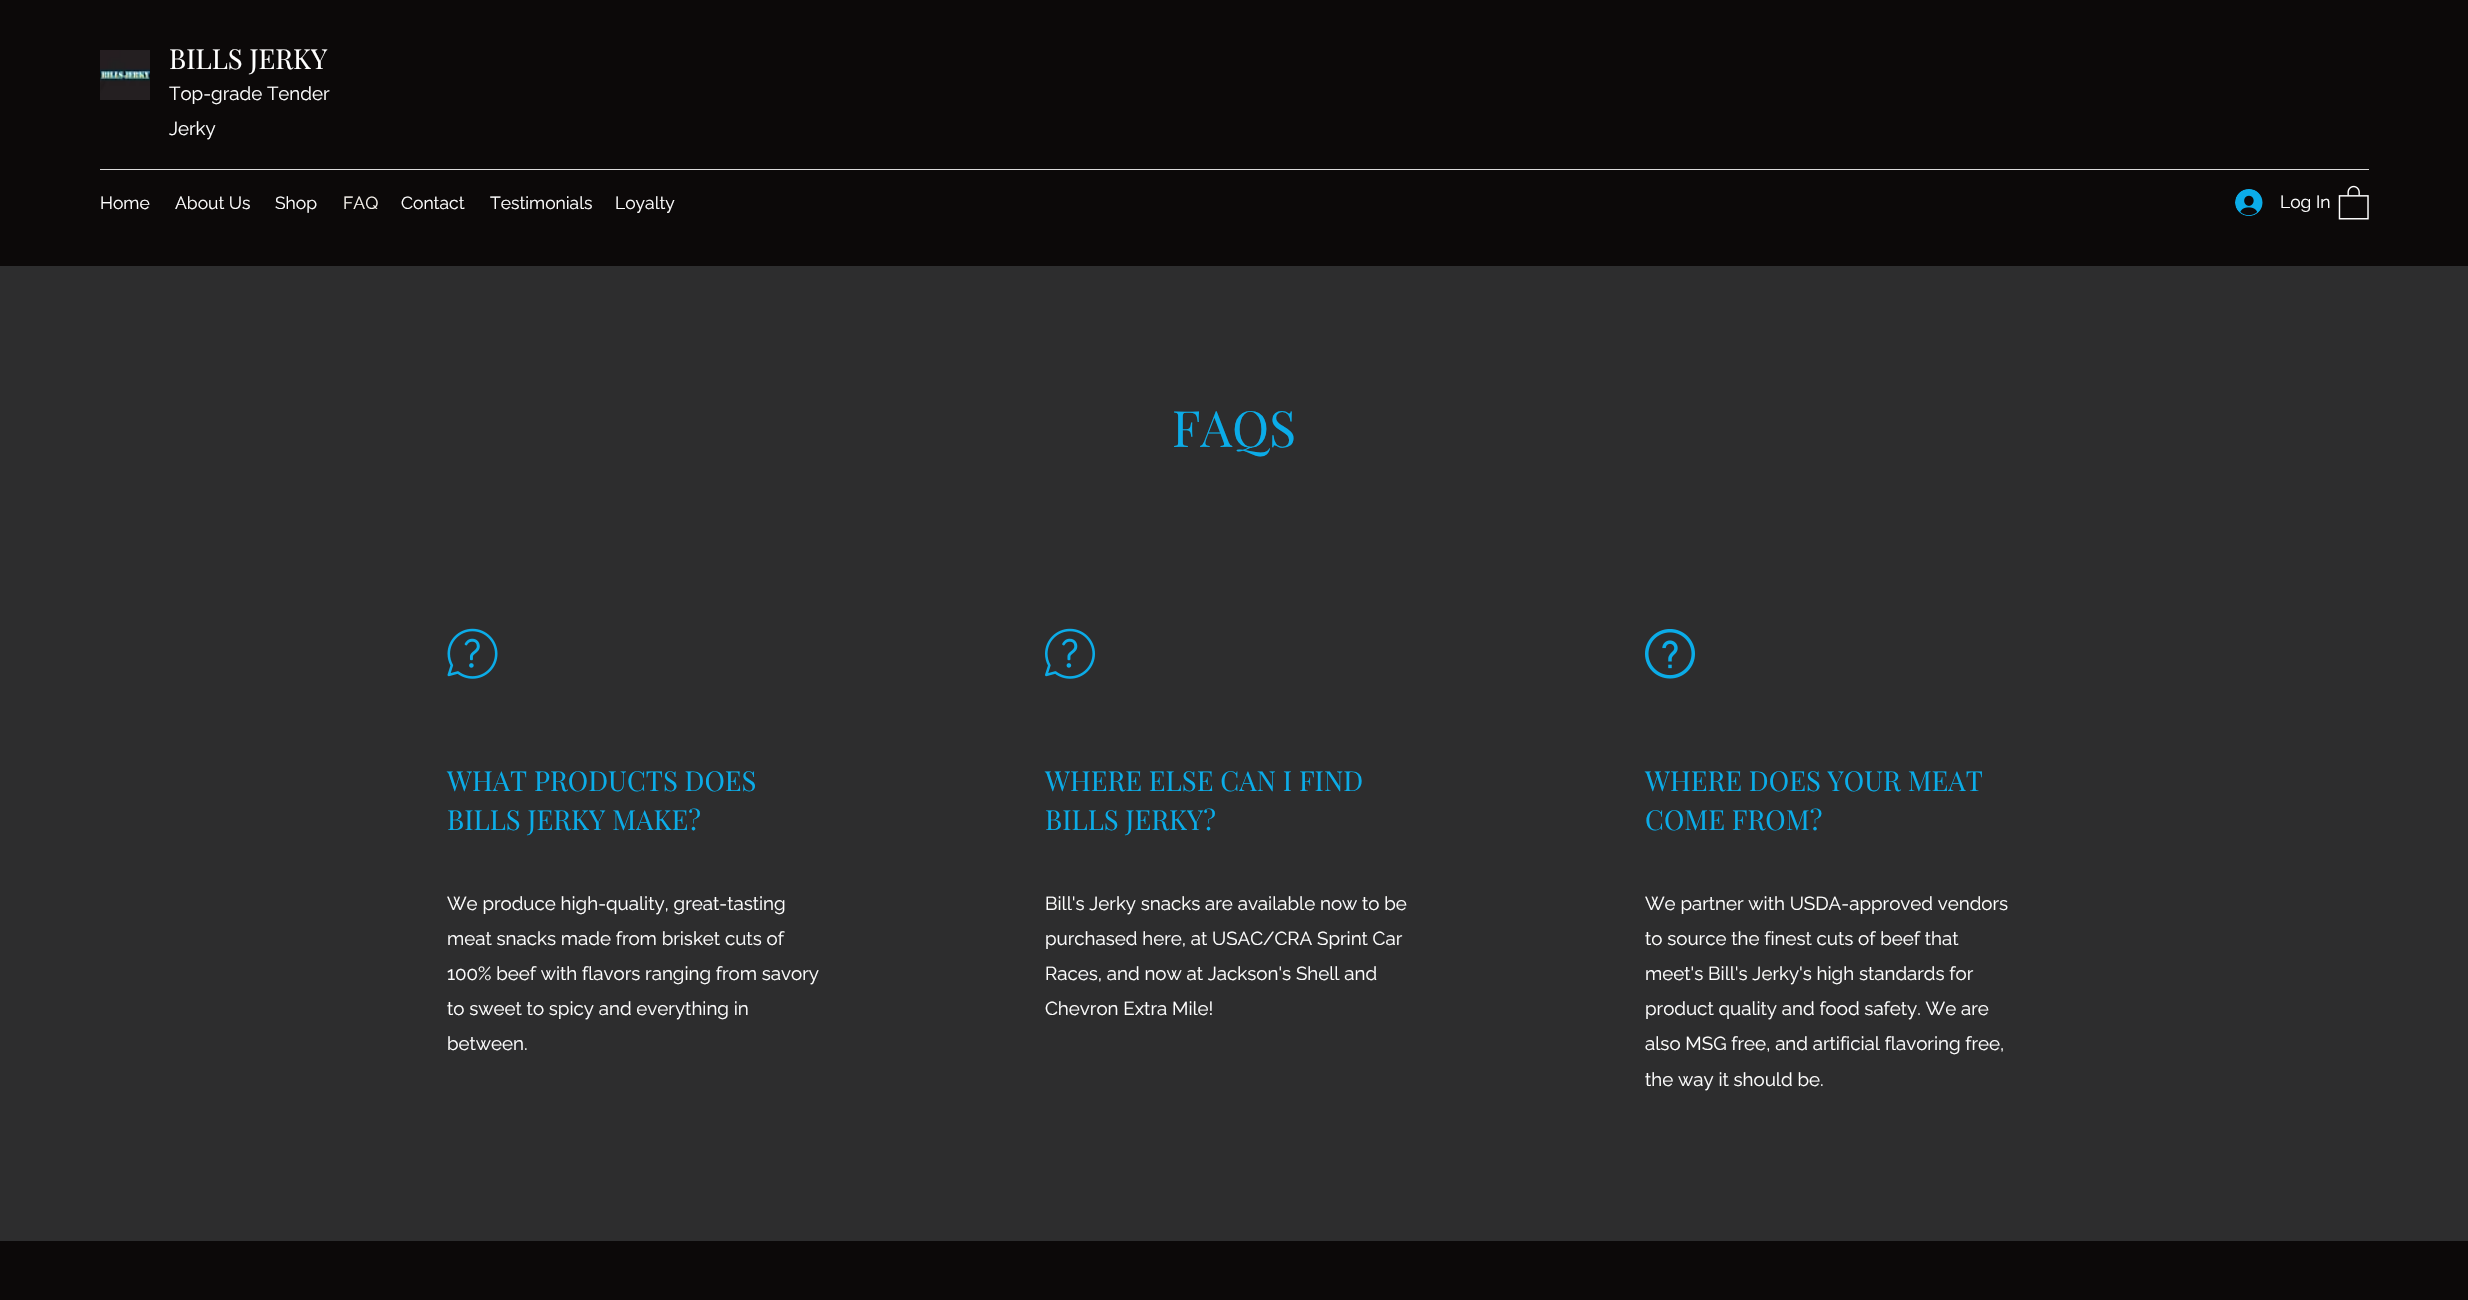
#include "include/core/SkBlurTypes.h"
#include "include/core/SkCanvas.h"
#include "include/core/SkData.h"
#include "include/core/SkFont.h"
#include "include/core/SkFontMgr.h"
#include "include/core/SkImage.h"
#include "include/core/SkMaskFilter.h"
#include "include/core/SkPaint.h"
#include "include/core/SkPathBuilder.h"
#include "include/core/SkTextBlob.h"
#include "include/effects/SkDashPathEffect.h"
#include "include/effects/SkGradientShader.h"
#include "include/utils/SkParsePath.h"

extern sk_sp<SkFontMgr> fontMgr;

void draw(SkCanvas* canvas) {
  SkPaint p;
  p.setAntiAlias(true);
  canvas->clear(SkColorSetRGB(45, 45, 46));
  p.setColor(SkColorSetRGB(12, 9, 9));
  canvas->drawRect(SkRect::MakeLTRB(0, 0, 2468, 266), p);
  canvas->drawImageRect(SkImages::DeferredFromEncodedData(SkData::MakeFromFileName("images/1.png")), SkRect::MakeLTRB(100, 50, 150, 100), SkSamplingOptions());
  p.setColor(SkColorSetRGB(219, 218, 218));
  canvas->drawRect(SkRect::MakeLTRB(100, 169, 2369, 170), p);
  canvas->drawImageRect(SkImages::DeferredFromEncodedData(SkData::MakeFromFileName("images/2.png")), SkRect::MakeLTRB(2235, 189, 2263, 216), SkSamplingOptions());
  canvas->drawImageRect(SkImages::DeferredFromEncodedData(SkData::MakeFromFileName("images/3.png")), SkRect::MakeLTRB(2338, 185, 2369, 220), SkSamplingOptions());
  canvas->drawImageRect(SkImages::DeferredFromEncodedData(SkData::MakeFromFileName("images/4.png")), SkRect::MakeLTRB(447, 628, 498, 679), SkSamplingOptions());
  canvas->drawImageRect(SkImages::DeferredFromEncodedData(SkData::MakeFromFileName("images/5.png")), SkRect::MakeLTRB(1045, 628, 1095, 679), SkSamplingOptions());
  canvas->drawImageRect(SkImages::DeferredFromEncodedData(SkData::MakeFromFileName("images/6.png")), SkRect::MakeLTRB(1645, 629, 1695, 679), SkSamplingOptions());
  p.setColor(SkColorSetRGB(12, 9, 9));
  canvas->drawRect(SkRect::MakeLTRB(0, 1241, 2468, 1300), p);
  SkFont font1(fontMgr->matchFamilyStyle("Playfair Display", SkFontStyle::Normal()), 27.5f);
  font1.setSubpixel(true);
  p.setColor(SK_ColorWHITE);
  canvas->drawString("BILLS JERKY", 169, 69, font1, p);
  SkFont font2(fontMgr->matchFamilyStyle("Raleway", SkFontStyle::Normal()), 18.75f);
  font2.setSubpixel(true);
  canvas->drawString("Top-grade Tender", 169, 100, font2, p);
  canvas->drawString("Jerky", 169, 135, font2, p);
  SkFont font3(fontMgr->matchFamilyStyle("Raleway", SkFontStyle::Normal()), 17.5f);
  font3.setSubpixel(true);
  canvas->drawString("Home", 100, 209, font3, p);
  canvas->drawString("About Us", 175, 209, font3, p);
  canvas->drawString("Shop", 275, 209, font3, p);
  p.setColor(SkColorSetRGB(248, 244, 238));
  canvas->drawString("FAQ", 343, 209, font3, p);
  p.setColor(SK_ColorWHITE);
  canvas->drawString("Contact", 401, 209, font3, p);
  canvas->drawString("Testimonials", 490, 209, font3, p);
  canvas->drawString("Loyalty", 615, 209, font3, p);
  canvas->drawString("Log In", 2280, 208, font3, p);
  SkFont font4(fontMgr->matchFamilyStyle("Playfair Display", SkFontStyle::Normal()), 50);
  font4.setSubpixel(true);
  p.setColor(SkColorSetRGB(11, 172, 232));
  canvas->drawString("FAQS", 1172, 447, font4, p);
  canvas->drawString("WHAT PRODUCTS DOES", 447, 791, font1, p);
  canvas->drawString("BILLS JERKY MAKE?", 447, 830, font1, p);
  p.setColor(SK_ColorWHITE);
  canvas->drawString("We produce high-quality, great-tasting", 447, 910, font2, p);
  canvas->drawString("meat snacks made from brisket cuts of", 447, 945, font2, p);
  canvas->drawString("100% beef with flavors ranging from savory", 447, 980, font2, p);
  canvas->drawString("to sweet to spicy and everything in", 447, 1015, font2, p);
  canvas->drawString("between.", 447, 1050, font2, p);
  p.setColor(SkColorSetRGB(11, 172, 232));
  canvas->drawString("WHERE ELSE CAN I FIND", 1045, 791, font1, p);
  canvas->drawString("BILLS JERKY?", 1045, 830, font1, p);
  p.setColor(SK_ColorWHITE);
  canvas->drawString("Bill's Jerky snacks are available now to be", 1045, 910, font2, p);
  canvas->drawString("purchased here, at USAC/CRA Sprint Car", 1045, 945, font2, p);
  canvas->drawString("Races, and now at Jackson's Shell and", 1045, 980, font2, p);
  canvas->drawString("Chevron Extra Mile!", 1045, 1015, font2, p);
  p.setColor(SkColorSetRGB(11, 172, 232));
  canvas->drawString("WHERE DOES YOUR MEAT", 1645, 791, font1, p);
  canvas->drawString("COME FROM?", 1645, 830, font1, p);
  p.setColor(SK_ColorWHITE);
  canvas->drawString("We partner with USDA-approved vendors", 1645, 910, font2, p);
  canvas->drawString("to source the finest cuts of beef that", 1645, 945, font2, p);
  canvas->drawString("meet's Bill's Jerky's high standards for", 1645, 980, font2, p);
  canvas->drawString("product quality and food safety. We are", 1645, 1015, font2, p);
  canvas->drawString("also MSG free, and artificial flavoring free,", 1645, 1050, font2, p);
  canvas->drawString("the way it should be.", 1645, 1086, font2, p);
}
